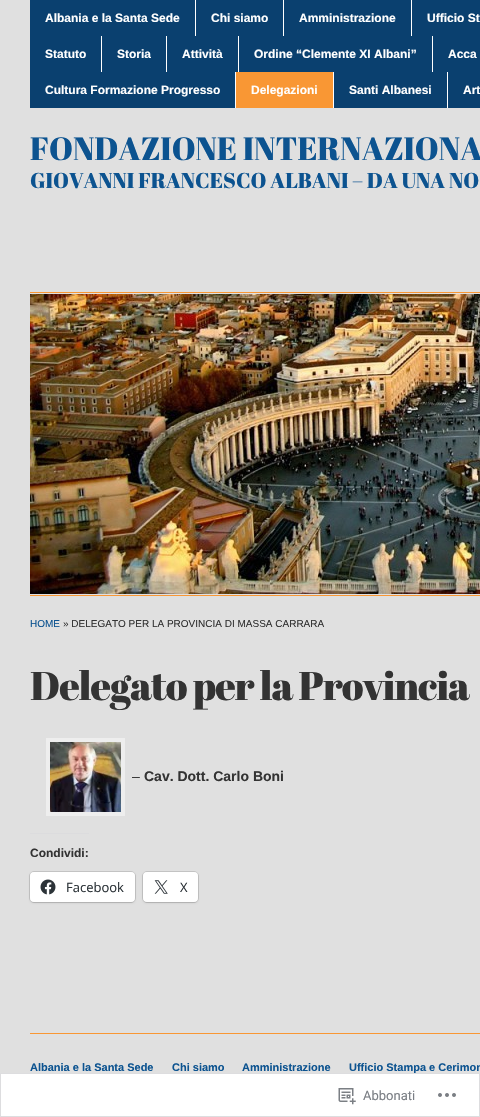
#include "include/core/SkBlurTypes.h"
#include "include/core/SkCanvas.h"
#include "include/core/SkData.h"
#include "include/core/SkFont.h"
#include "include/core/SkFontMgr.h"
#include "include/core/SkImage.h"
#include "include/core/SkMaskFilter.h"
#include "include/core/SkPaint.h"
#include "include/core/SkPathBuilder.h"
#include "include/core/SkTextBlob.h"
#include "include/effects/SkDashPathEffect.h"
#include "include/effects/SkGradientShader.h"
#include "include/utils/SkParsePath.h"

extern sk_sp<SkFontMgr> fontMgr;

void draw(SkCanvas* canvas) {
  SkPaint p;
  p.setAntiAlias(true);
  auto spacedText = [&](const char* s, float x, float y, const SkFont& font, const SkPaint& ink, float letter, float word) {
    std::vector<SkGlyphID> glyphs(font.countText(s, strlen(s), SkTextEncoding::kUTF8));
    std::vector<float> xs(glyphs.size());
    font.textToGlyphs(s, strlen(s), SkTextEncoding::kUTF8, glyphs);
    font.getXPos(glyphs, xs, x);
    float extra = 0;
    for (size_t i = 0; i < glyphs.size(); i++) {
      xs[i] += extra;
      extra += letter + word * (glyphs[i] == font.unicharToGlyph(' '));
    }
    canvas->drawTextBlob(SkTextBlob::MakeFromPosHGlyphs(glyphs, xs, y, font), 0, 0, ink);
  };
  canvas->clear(SkColorSetRGB(224, 224, 224));
  p.setColor(SkColorSetRGB(10, 64, 111));
  canvas->drawRect(SkRect::MakeLTRB(30, 0, 480, 108), p);
  p.setColor(SK_ColorWHITE);
  canvas->drawRect(SkRect::MakeLTRB(195, 0, 196, 36), p);
  canvas->drawRect(SkRect::MakeLTRB(283, 0, 284, 36), p);
  canvas->drawRect(SkRect::MakeLTRB(411, 0, 412, 36), p);
  canvas->drawRect(SkRect::MakeLTRB(101, 36, 102, 72), p);
  canvas->drawRect(SkRect::MakeLTRB(166, 36, 167, 72), p);
  canvas->drawRect(SkRect::MakeLTRB(238, 36, 239, 72), p);
  canvas->drawRect(SkRect::MakeLTRB(432, 36, 433, 72), p);
  canvas->drawRect(SkRect::MakeLTRB(235, 72, 236, 108), p);
  canvas->drawRect(SkRect::MakeLTRB(333, 72, 334, 108), p);
  p.setColor(SkColorSetRGB(249, 151, 52));
  canvas->drawRect(SkRect::MakeLTRB(236, 72, 333, 108), p);
  p.setColor(SK_ColorWHITE);
  canvas->drawRect(SkRect::MakeLTRB(447, 72, 448, 108), p);
  p.setColor(SkColorSetRGB(249, 151, 52));
  canvas->drawRect(SkRect::MakeLTRB(30, 292, 480, 293), p);
  canvas->drawRect(SkRect::MakeLTRB(30, 595, 480, 596), p);
  canvas->drawImageRect(SkImages::DeferredFromEncodedData(SkData::MakeFromFileName("images/1.png")), SkRect::MakeLTRB(30, 294, 480, 594), SkSamplingOptions());
  p.setStyle(SkPaint::kStroke_Style);
  p.setStrokeWidth(4);
  p.setColor(SkColorSetRGB(238, 238, 238));
  canvas->drawRect(SkRect::MakeLTRB(48, 740, 123, 814), p);
  canvas->drawImageRect(SkImages::DeferredFromEncodedData(SkData::MakeFromFileName("images/2.png")), SkRect::MakeLTRB(50, 742, 121, 812), SkSamplingOptions());
  p.setStyle(SkPaint::kFill_Style);
  p.setColor(SkColorSetRGB(220, 220, 222));
  canvas->drawRect(SkRect::MakeLTRB(30, 833, 89, 834), p);
  p.setStyle(SkPaint::kStroke_Style);
  p.setStrokeWidth(1);
  p.setColor(SkColorSetRGB(197, 197, 197));
  canvas->drawRoundRect(SkRect::MakeLTRB(29.5f, 871.5f, 135.5f, 902.5f), 4.5f, 4.5f, p);
  p.setStyle(SkPaint::kFill_Style);
  p.setColor(SkColorSetARGB(31, 0, 0, 0));
  p.setMaskFilter(SkMaskFilter::MakeBlur(kNormal_SkBlurStyle, 1));
  canvas->drawRoundRect(SkRect::MakeLTRB(30, 873, 135, 903), 4, 4, p);
  p.setMaskFilter(nullptr);
  p.setColor(SK_ColorWHITE);
  canvas->drawRoundRect(SkRect::MakeLTRB(30, 872, 135, 902), 4, 4, p);
  canvas->drawImageRect(SkImages::DeferredFromEncodedData(SkData::MakeFromFileName("images/3.png")), SkRect::MakeLTRB(40, 879, 56, 895), SkSamplingOptions());
  p.setStyle(SkPaint::kStroke_Style);
  p.setColor(SkColorSetRGB(197, 197, 197));
  canvas->drawRoundRect(SkRect::MakeLTRB(142.5f, 871.5f, 198.5f, 902.5f), 4.5f, 4.5f, p);
  p.setStyle(SkPaint::kFill_Style);
  p.setColor(SkColorSetARGB(31, 0, 0, 0));
  p.setMaskFilter(SkMaskFilter::MakeBlur(kNormal_SkBlurStyle, 1));
  canvas->drawRoundRect(SkRect::MakeLTRB(143, 873, 198, 903), 4, 4, p);
  p.setMaskFilter(nullptr);
  p.setColor(SK_ColorWHITE);
  canvas->drawRoundRect(SkRect::MakeLTRB(143, 872, 198, 902), 4, 4, p);
  canvas->drawImageRect(SkImages::DeferredFromEncodedData(SkData::MakeFromFileName("images/4.png")), SkRect::MakeLTRB(154, 880, 168, 894), SkSamplingOptions());
  p.setColor(SkColorSetRGB(249, 151, 52));
  canvas->drawRect(SkRect::MakeLTRB(30, 1033, 480, 1034), p);
  SkFont font1(fontMgr->matchFamilyStyle("Liberation Sans", SkFontStyle::Bold()), 12);
  font1.setSubpixel(true);
  p.setColor(SK_ColorWHITE);
  canvas->drawString("Albania e la Santa Sede", 45, 22, font1, p);
  canvas->drawString("Chi siamo", 211, 22, font1, p);
  canvas->drawString("Amministrazione", 299, 22, font1, p);
  canvas->drawString("Ufficio St", 427, 22, font1, p);
  canvas->drawString("Statuto", 45, 58, font1, p);
  canvas->drawString("Storia", 117, 58, font1, p);
  canvas->drawString("Attività", 182, 58, font1, p);
  canvas->drawString("Ordine “Clemente XI Albani”", 254, 58, font1, p);
  canvas->drawString("Acca", 448, 58, font1, p);
  canvas->drawString("Cultura Formazione Progresso", 45, 94, font1, p);
  canvas->drawString("Delegazioni", 251, 94, font1, p);
  canvas->drawString("Santi Albanesi", 349, 94, font1, p);
  canvas->drawString("Art", 463, 94, font1, p);
  SkFont font2(fontMgr->matchFamilyStyle("Abril Fatface", SkFontStyle::Normal()), 32);
  font2.setSubpixel(true);
  p.setColor(SkColorSetRGB(12, 83, 144));
  canvas->drawString("FONDAZIONE INTERNAZIONA", 30, 160, font2, p);
  SkFont font3(fontMgr->matchFamilyStyle("Abril Fatface", SkFontStyle::Normal()), 21.3f);
  font3.setSubpixel(true);
  canvas->drawString("GIOVANNI FRANCESCO ALBANI – DA UNA NO", 30, 188, font3, p);
  SkFont font4(fontMgr->matchFamilyStyle("Liberation Sans", SkFontStyle::Normal()), 10);
  font4.setSubpixel(true);
  canvas->drawString("HOME", 30, 627, font4, p);
  p.setColor(SkColorSetRGB(51, 51, 51));
  canvas->drawString("» DELEGATO PER LA PROVINCIA DI MASSA CARRARA", 63, 627, font4, p);
  SkFont font5(fontMgr->matchFamilyStyle("Abril Fatface", SkFontStyle::Normal()), 40);
  font5.setSubpixel(true);
  spacedText("Delegato per la Provincia", 30, 700, font5, p, -1, 0);
  SkFont font6(fontMgr->matchFamilyStyle("Liberation Sans", SkFontStyle::Normal()), 14);
  font6.setSubpixel(true);
  canvas->drawString("–", 132, 781, font6, p);
  SkFont font7(fontMgr->matchFamilyStyle("Liberation Sans", SkFontStyle::Bold()), 14);
  font7.setSubpixel(true);
  canvas->drawString("Cav. Dott. Carlo Boni", 144, 781, font7, p);
  canvas->drawString("Condividi:", 30, 857, font1, p);
  SkFont font8(fontMgr->matchFamilyStyle("Open Sans", SkFontStyle::Normal()), 13);
  font8.setSubpixel(true);
  p.setColor(SkColorSetRGB(44, 51, 56));
  canvas->drawString("Facebook", 66, 892, font8, p);
  canvas->drawString("X", 180, 892, font8, p);
  SkFont font9(fontMgr->matchFamilyStyle("Liberation Sans", SkFontStyle::Bold()), 11);
  font9.setSubpixel(true);
  p.setColor(SkColorSetRGB(12, 83, 144));
  canvas->drawString("Albania e la Santa Sede", 30, 1071, font9, p);
  canvas->drawString("Chi siamo", 172, 1071, font9, p);
  canvas->drawString("Amministrazione", 242, 1071, font9, p);
  canvas->drawString("Ufficio Stampa e Cerimon", 349, 1071, font9, p);
  p.setColor(SkColorSetARGB(250, 255, 255, 255));
  canvas->drawRect(SkRect::MakeLTRB(0, 1073, 480, 1117), p);
  p.setStyle(SkPaint::kStroke_Style);
  p.setColor(SkColorSetARGB(250, 220, 220, 222));
  canvas->drawRect(SkRect::MakeLTRB(0.5f, 1073.5f, 479.5f, 1116.5f), p);
  canvas->drawImageRect(SkImages::DeferredFromEncodedData(SkData::MakeFromFileName("images/5.png")), SkRect::MakeLTRB(338, 1088, 356, 1105), SkSamplingOptions());
  SkFont font10(fontMgr->matchFamilyStyle("Roboto", SkFontStyle::Normal()), 13);
  font10.setSubpixel(true);
  p.setStyle(SkPaint::kFill_Style);
  p.setColor(SkColorSetRGB(122, 126, 132));
  canvas->drawString("Abbonati", 363, 1100, font10, p);
  canvas->drawImageRect(SkImages::DeferredFromEncodedData(SkData::MakeFromFileName("images/6.png")), SkRect::MakeLTRB(438, 1093, 456, 1097), SkSamplingOptions());
}
